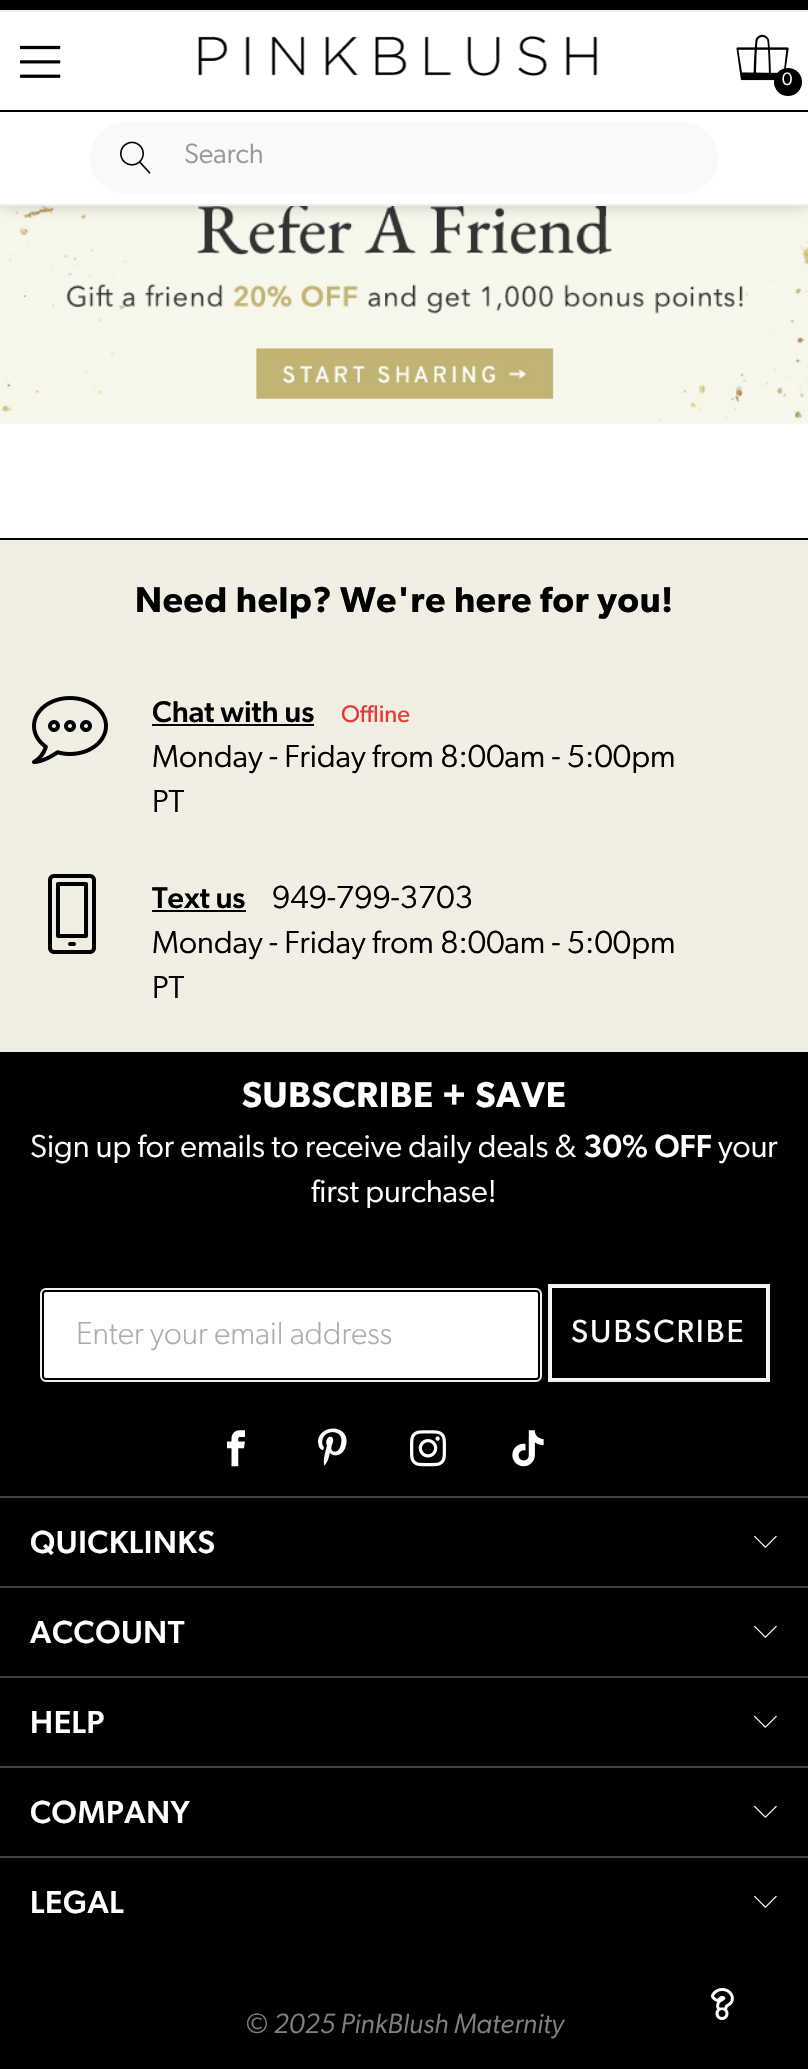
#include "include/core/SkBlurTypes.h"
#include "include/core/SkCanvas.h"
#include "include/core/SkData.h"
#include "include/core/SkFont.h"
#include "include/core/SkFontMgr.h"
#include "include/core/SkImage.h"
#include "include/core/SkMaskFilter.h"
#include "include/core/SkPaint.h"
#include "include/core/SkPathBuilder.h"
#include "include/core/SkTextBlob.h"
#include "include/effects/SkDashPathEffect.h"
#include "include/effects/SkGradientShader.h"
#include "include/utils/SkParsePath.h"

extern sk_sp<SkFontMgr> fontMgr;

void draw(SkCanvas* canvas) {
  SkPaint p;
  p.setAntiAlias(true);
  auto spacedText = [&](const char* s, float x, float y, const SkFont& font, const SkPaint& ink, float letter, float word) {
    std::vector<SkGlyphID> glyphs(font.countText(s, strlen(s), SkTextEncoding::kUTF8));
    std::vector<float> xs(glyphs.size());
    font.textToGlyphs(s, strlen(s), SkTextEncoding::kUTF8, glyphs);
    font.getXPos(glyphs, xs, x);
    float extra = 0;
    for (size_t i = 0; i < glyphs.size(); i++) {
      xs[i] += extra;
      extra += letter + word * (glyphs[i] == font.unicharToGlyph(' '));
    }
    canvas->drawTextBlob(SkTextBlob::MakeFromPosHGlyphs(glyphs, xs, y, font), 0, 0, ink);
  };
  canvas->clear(SK_ColorWHITE);
  canvas->drawImageRect(SkImages::DeferredFromEncodedData(SkData::MakeFromFileName("images/5.png")), SkRect::MakeLTRB(0, 206, 808, 424), SkSamplingOptions());
  p.setColor(SkColorSetARGB(51, 0, 0, 0));
  p.setMaskFilter(SkMaskFilter::MakeBlur(kNormal_SkBlurStyle, 7));
  canvas->drawRect(SkRect::MakeLTRB(0, -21, 808, 206), p);
  p.setMaskFilter(nullptr);
  p.setColor(SK_ColorWHITE);
  canvas->drawRect(SkRect::MakeLTRB(0, 12, 808, 204), p);
  p.setColor(SkColorSetRGB(238, 238, 238));
  canvas->drawRect(SkRect::MakeLTRB(0, 204, 808, 206), p);
  p.setColor(SK_ColorBLACK);
  canvas->drawRect(SkRect::MakeLTRB(0, 0, 808, 10), p);
  p.setColor(SkColorSetRGB(238, 238, 238));
  canvas->drawRect(SkRect::MakeLTRB(0, 10, 808, 12), p);
  canvas->drawImageRect(SkImages::DeferredFromEncodedData(SkData::MakeFromFileName("images/1.png")), SkRect::MakeLTRB(20, 45, 61, 78), SkSamplingOptions());
  canvas->drawImageRect(SkImages::DeferredFromEncodedData(SkData::MakeFromFileName("images/2.png")), SkRect::MakeLTRB(198, 36, 598, 76), SkSamplingOptions());
  canvas->drawImageRect(SkImages::DeferredFromEncodedData(SkData::MakeFromFileName("images/3.png")), SkRect::MakeLTRB(736, 34, 789, 81), SkSamplingOptions());
  p.setColor(SK_ColorBLACK);
  canvas->drawCircle(788, 82, 14, p);
  canvas->drawRect(SkRect::MakeLTRB(0, 110, 808, 112), p);
  p.setColor(SkColorSetRGB(249, 249, 249));
  canvas->drawRoundRect(SkRect::MakeLTRB(90, 122, 718, 194), 36, 36, p);
  canvas->drawImageRect(SkImages::DeferredFromEncodedData(SkData::MakeFromFileName("images/4.png")), SkRect::MakeLTRB(120, 141, 151, 174), SkSamplingOptions());
  p.setColor(SkColorSetRGB(241, 238, 228));
  canvas->drawRect(SkRect::MakeLTRB(0, 540, 808, 1052), p);
  p.setColor(SK_ColorBLACK);
  canvas->drawRect(SkRect::MakeLTRB(0, 538, 808, 540), p);
  canvas->drawImageRect(SkImages::DeferredFromEncodedData(SkData::MakeFromFileName("images/6.png")), SkRect::MakeLTRB(32, 696, 108, 764), SkSamplingOptions());
  canvas->drawRect(SkRect::MakeLTRB(152, 724, 314, 726), p);
  canvas->drawImageRect(SkImages::DeferredFromEncodedData(SkData::MakeFromFileName("images/7.png")), SkRect::MakeLTRB(48, 874, 96, 954), SkSamplingOptions());
  canvas->drawRect(SkRect::MakeLTRB(152, 910, 246, 912), p);
  canvas->drawRect(SkRect::MakeLTRB(0, 1052, 808, 2069), p);
  p.setColor(SK_ColorWHITE);
  canvas->drawRoundRect(SkRect::MakeLTRB(43, 1291, 539, 1379), 3, 3, p);
  p.setStyle(SkPaint::kStroke_Style);
  p.setStrokeWidth(2);
  p.setColor(SK_ColorBLACK);
  canvas->drawRoundRect(SkRect::MakeLTRB(43, 1291, 539, 1379), 3, 3, p);
  p.setColor(SkColorSetRGB(238, 238, 238));
  canvas->drawRoundRect(SkRect::MakeLTRB(41, 1289, 541, 1381), 5, 5, p);
  p.setColor(SkColorSetRGB(253, 248, 248));
  canvas->drawRect(SkRect::MakeLTRB(551, 1287, 767, 1379), p);
  p.setColor(SkColorSetRGB(238, 238, 238));
  canvas->drawRect(SkRect::MakeLTRB(549, 1285, 769, 1381), p);
  canvas->drawImageRect(SkImages::DeferredFromEncodedData(SkData::MakeFromFileName("images/8.png")), SkRect::MakeLTRB(227, 1430, 245, 1467), SkSamplingOptions());
  canvas->drawImageRect(SkImages::DeferredFromEncodedData(SkData::MakeFromFileName("images/9.png")), SkRect::MakeLTRB(318, 1428, 347, 1466), SkSamplingOptions());
  canvas->drawImageRect(SkImages::DeferredFromEncodedData(SkData::MakeFromFileName("images/10.png")), SkRect::MakeLTRB(410, 1430, 446, 1467), SkSamplingOptions());
  canvas->drawImageRect(SkImages::DeferredFromEncodedData(SkData::MakeFromFileName("images/11.png")), SkRect::MakeLTRB(512, 1430, 544, 1467), SkSamplingOptions());
  p.setStyle(SkPaint::kFill_Style);
  p.setColor(SkColorSetRGB(64, 64, 64));
  canvas->drawRect(SkRect::MakeLTRB(0, 1496, 808, 1498), p);
  canvas->drawImageRect(SkImages::DeferredFromEncodedData(SkData::MakeFromFileName("images/12.png")), SkRect::MakeLTRB(754, 1535, 777, 1548), SkSamplingOptions());
  canvas->drawRect(SkRect::MakeLTRB(0, 1586, 808, 1588), p);
  canvas->drawImageRect(SkImages::DeferredFromEncodedData(SkData::MakeFromFileName("images/12.png")), SkRect::MakeLTRB(754, 1625, 777, 1638), SkSamplingOptions());
  canvas->drawRect(SkRect::MakeLTRB(0, 1676, 808, 1678), p);
  canvas->drawImageRect(SkImages::DeferredFromEncodedData(SkData::MakeFromFileName("images/12.png")), SkRect::MakeLTRB(754, 1715, 777, 1728), SkSamplingOptions());
  canvas->drawRect(SkRect::MakeLTRB(0, 1766, 808, 1768), p);
  canvas->drawImageRect(SkImages::DeferredFromEncodedData(SkData::MakeFromFileName("images/12.png")), SkRect::MakeLTRB(754, 1805, 777, 1818), SkSamplingOptions());
  canvas->drawRect(SkRect::MakeLTRB(0, 1856, 808, 1858), p);
  canvas->drawImageRect(SkImages::DeferredFromEncodedData(SkData::MakeFromFileName("images/12.png")), SkRect::MakeLTRB(754, 1895, 777, 1908), SkSamplingOptions());
  canvas->drawImageRect(SkImages::DeferredFromEncodedData(SkData::MakeFromFileName("images/13.png")), SkRect::MakeLTRB(711, 1988, 734, 2020), SkSamplingOptions());
  SkFont font1(fontMgr->matchFamilyStyle("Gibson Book", SkFontStyle::Normal()), 18);
  font1.setSubpixel(true);
  p.setColor(SK_ColorWHITE);
  canvas->drawString("0", 782, 85, font1, p);
  SkFont font2(fontMgr->matchFamilyStyle("Gibson Book", SkFontStyle::Normal()), 28);
  font2.setSubpixel(true);
  p.setColor(SkColorSetRGB(153, 153, 153));
  canvas->drawString("Search", 184, 163, font2, p);
  SkFont font3(fontMgr->matchFamilyStyle("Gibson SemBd", SkFontStyle(600, SkFontStyle::kNormal_Width, SkFontStyle::kUpright_Slant)), 36);
  font3.setSubpixel(true);
  p.setColor(SK_ColorBLACK);
  spacedText("Need help? We're here for you!", 135, 612, font3, p, 0.75f, 0);
  SkFont font4(fontMgr->matchFamilyStyle("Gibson", SkFontStyle(500, SkFontStyle::kNormal_Width, SkFontStyle::kUpright_Slant)), 30);
  font4.setSubpixel(true);
  canvas->drawString("Chat with us", 152, 722, font4, p);
  SkFont font5(fontMgr->matchFamilyStyle("Gibson", SkFontStyle::Normal()), 24);
  font5.setSubpixel(true);
  p.setColor(SkColorSetRGB(232, 56, 56));
  canvas->drawString("Offline", 341, 722, font5, p);
  SkFont font6(fontMgr->matchFamilyStyle("Gibson Book", SkFontStyle::Normal()), 32);
  font6.setSubpixel(true);
  p.setColor(SK_ColorBLACK);
  canvas->drawString("Monday - Friday from 8:00am - 5:00pm", 152, 767, font6, p);
  canvas->drawString("PT", 152, 812, font6, p);
  canvas->drawString("Text us", 152, 908, font4, p);
  canvas->drawString("949-799-3703", 272, 908, font6, p);
  canvas->drawString("Monday - Friday from 8:00am - 5:00pm", 152, 953, font6, p);
  canvas->drawString("PT", 152, 998, font6, p);
  p.setColor(SK_ColorWHITE);
  spacedText("SUBSCRIBE + SAVE", 242, 1107, font3, p, 0.75f, 0);
  canvas->drawString("Sign up for emails to receive daily deals &", 30, 1157, font6, p);
  SkFont font7(fontMgr->matchFamilyStyle("Gibson", SkFontStyle(500, SkFontStyle::kNormal_Width, SkFontStyle::kUpright_Slant)), 32);
  font7.setSubpixel(true);
  canvas->drawString("30% OFF", 583, 1157, font7, p);
  canvas->drawString("your", 718, 1157, font6, p);
  canvas->drawString("first purchase!", 311, 1202, font6, p);
  SkFont font8(fontMgr->matchFamilyStyle("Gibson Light", SkFontStyle(300, SkFontStyle::kNormal_Width, SkFontStyle::kUpright_Slant)), 32);
  font8.setSubpixel(true);
  p.setColor(SkColorSetRGB(173, 173, 173));
  canvas->drawString("Enter your email address", 76, 1344, font8, p);
  SkFont font9(fontMgr->matchFamilyStyle("Gibson", SkFontStyle::Normal()), 32);
  font9.setSubpixel(true);
  p.setColor(SK_ColorWHITE);
  spacedText("SUBSCRIBE", 571, 1342, font9, p, 2, 0);
  spacedText("QUICKLINKS", 30, 1553, font7, p, 0.6f, 0);
  spacedText("ACCOUNT", 30, 1643, font7, p, 0.6f, 0);
  spacedText("HELP", 30, 1733, font7, p, 0.6f, 0);
  spacedText("COMPANY", 30, 1823, font7, p, 0.6f, 0);
  spacedText("LEGAL", 30, 1913, font7, p, 0.6f, 0);
  SkFont font10(fontMgr->matchFamilyStyle("Gibson", SkFontStyle::Italic()), 28);
  font10.setSubpixel(true);
  p.setColor(SkColorSetRGB(128, 128, 128));
  canvas->drawString("© 2025 PinkBlush Maternity", 245, 2033, font10, p);
}
